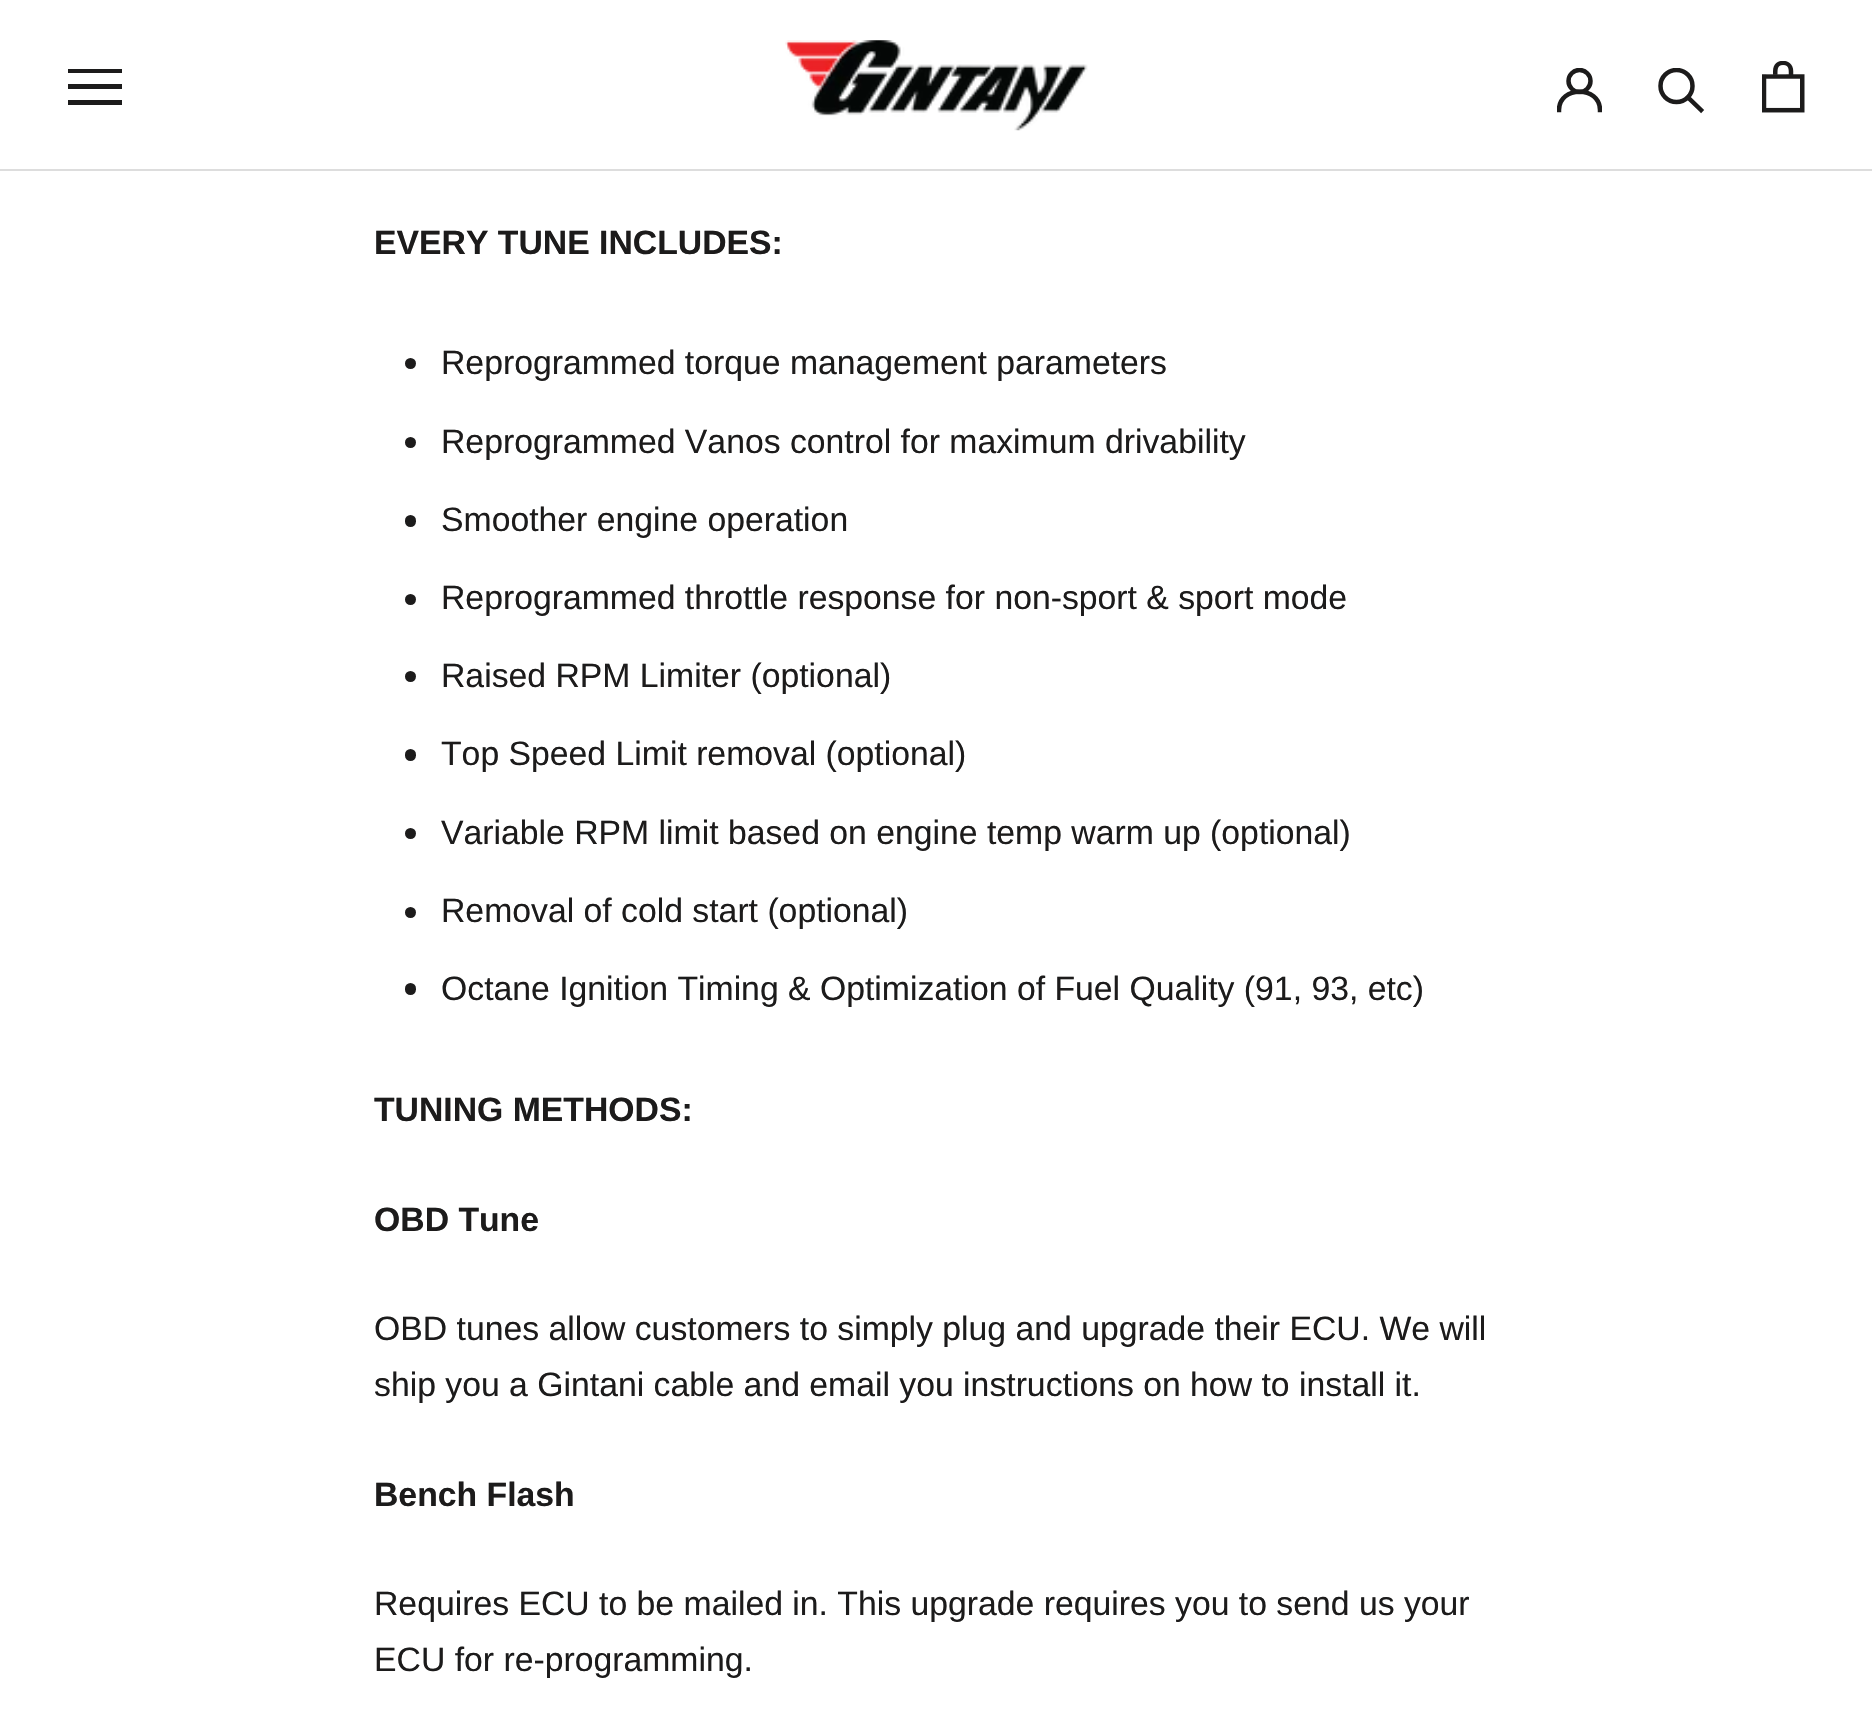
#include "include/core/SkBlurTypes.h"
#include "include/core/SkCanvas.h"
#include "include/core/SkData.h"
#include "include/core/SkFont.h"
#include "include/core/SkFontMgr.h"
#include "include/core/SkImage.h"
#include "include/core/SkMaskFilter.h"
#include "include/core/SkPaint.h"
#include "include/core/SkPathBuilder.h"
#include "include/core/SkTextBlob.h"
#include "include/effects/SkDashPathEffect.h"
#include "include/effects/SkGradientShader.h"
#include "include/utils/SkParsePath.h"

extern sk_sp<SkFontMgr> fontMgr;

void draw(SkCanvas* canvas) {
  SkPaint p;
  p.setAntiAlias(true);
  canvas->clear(SK_ColorWHITE);
  p.setColor(SkColorSetRGB(221, 221, 221));
  canvas->drawRect(SkRect::MakeLTRB(0, 169, 1872, 171), p);
  p.setColor(SkColorSetRGB(28, 27, 27));
  canvas->drawPath(SkPathBuilder().moveTo(68, 105).lineTo(68, 100).lineTo(122, 100).lineTo(122, 105).close().moveTo(68, 84).lineTo(122, 84).lineTo(122, 89).lineTo(68, 89).close().moveTo(68, 69).lineTo(122, 69).lineTo(122, 73).lineTo(68, 73).close().detach(), p);
  canvas->drawImageRect(SkImages::DeferredFromEncodedData(SkData::MakeFromFileName("images/1.png")), SkRect::MakeLTRB(785, 40, 1088, 131), SkSamplingOptions());
  canvas->save();
  canvas->clipRect(SkRect::MakeLTRB(1557, 68, 1602, 113));
  p.setStyle(SkPaint::kStroke_Style);
  p.setStrokeWidth(4.5f);
  p.setStrokeCap(SkPaint::kSquare_Cap);
  canvas->drawPath(SkPathBuilder().moveTo(1559, 110).cubicTo(1559, 85.5f, 1600, 85.5f, 1600, 110).detach(), p);
  p.setStrokeCap(SkPaint::kButt_Cap);
  canvas->drawCircle(1579.5f, 81, 11, p);
  canvas->restore();
  p.setStrokeCap(SkPaint::kSquare_Cap);
  canvas->drawPath(SkPathBuilder().moveTo(1701, 110).lineTo(1688, 97.5f).detach(), p);
  canvas->save();
  canvas->clipRect(SkRect::MakeLTRB(1658, 68, 1706, 115));
  p.setStrokeCap(SkPaint::kButt_Cap);
  canvas->drawCircle(1676.5f, 86, 16, p);
  canvas->restore();
  canvas->drawImageRect(SkImages::DeferredFromEncodedData(SkData::MakeFromFileName("images/2.png")), SkRect::MakeLTRB(1762, 61, 1805, 113), SkSamplingOptions());
  p.setStyle(SkPaint::kFill_Style);
  canvas->drawCircle(410.5f, 363.5f, 5.5f, p);
  canvas->drawCircle(410.5f, 442.5f, 5.5f, p);
  canvas->drawRoundRect(SkRect::MakeLTRB(405, 515, 416, 527), 5.5f, 5.5f, p);
  canvas->drawCircle(410.5f, 599.5f, 5.5f, p);
  canvas->drawCircle(410.5f, 676.5f, 5.5f, p);
  canvas->drawRoundRect(SkRect::MakeLTRB(405, 749, 416, 761), 5.5f, 5.5f, p);
  canvas->drawCircle(410.5f, 833.5f, 5.5f, p);
  canvas->drawCircle(410.5f, 912.5f, 5.5f, p);
  canvas->drawRoundRect(SkRect::MakeLTRB(405, 983, 416, 995), 5.5f, 5.5f, p);
  SkFont font1(fontMgr->matchFamilyStyle("Liberation Sans", SkFontStyle::Bold()), 33.75f);
  font1.setSubpixel(true);
  canvas->drawString("EVERY TUNE INCLUDES:", 374, 254, font1, p);
  SkFont font2(fontMgr->matchFamilyStyle("Liberation Sans", SkFontStyle::Normal()), 33.75f);
  font2.setSubpixel(true);
  canvas->drawString("Reprogrammed torque management parameters", 441, 374, font2, p);
  canvas->drawString("Reprogrammed Vanos control for maximum drivability", 441, 453, font2, p);
  canvas->drawString("Smoother engine operation", 441, 531, font2, p);
  canvas->drawString("Reprogrammed throttle response for non-sport & sport mode", 441, 609, font2, p);
  canvas->drawString("Raised RPM Limiter (optional)", 441, 687, font2, p);
  canvas->drawString("Top Speed Limit removal (optional)", 441, 765, font2, p);
  canvas->drawString("Variable RPM limit based on engine temp warm up (optional)", 441, 844, font2, p);
  canvas->drawString("Removal of cold start (optional)", 441, 922, font2, p);
  canvas->drawString("Octane Ignition Timing & Optimization of Fuel Quality (91, 93, etc)", 441, 1000, font2, p);
  canvas->drawString("TUNING METHODS:", 374, 1121, font1, p);
  canvas->drawString("OBD Tune", 374, 1231, font1, p);
  canvas->drawString("OBD tunes allow customers to simply plug and upgrade their ECU. We will", 374, 1340, font2, p);
  canvas->drawString("ship you a Gintani cable and email you instructions on how to install it.", 374, 1396, font2, p);
  canvas->drawString("Bench Flash", 374, 1506, font1, p);
  canvas->drawString("Requires ECU to be mailed in. This upgrade requires you to send us your", 374, 1615, font2, p);
  canvas->drawString("ECU for re-programming.", 374, 1671, font2, p);
}
